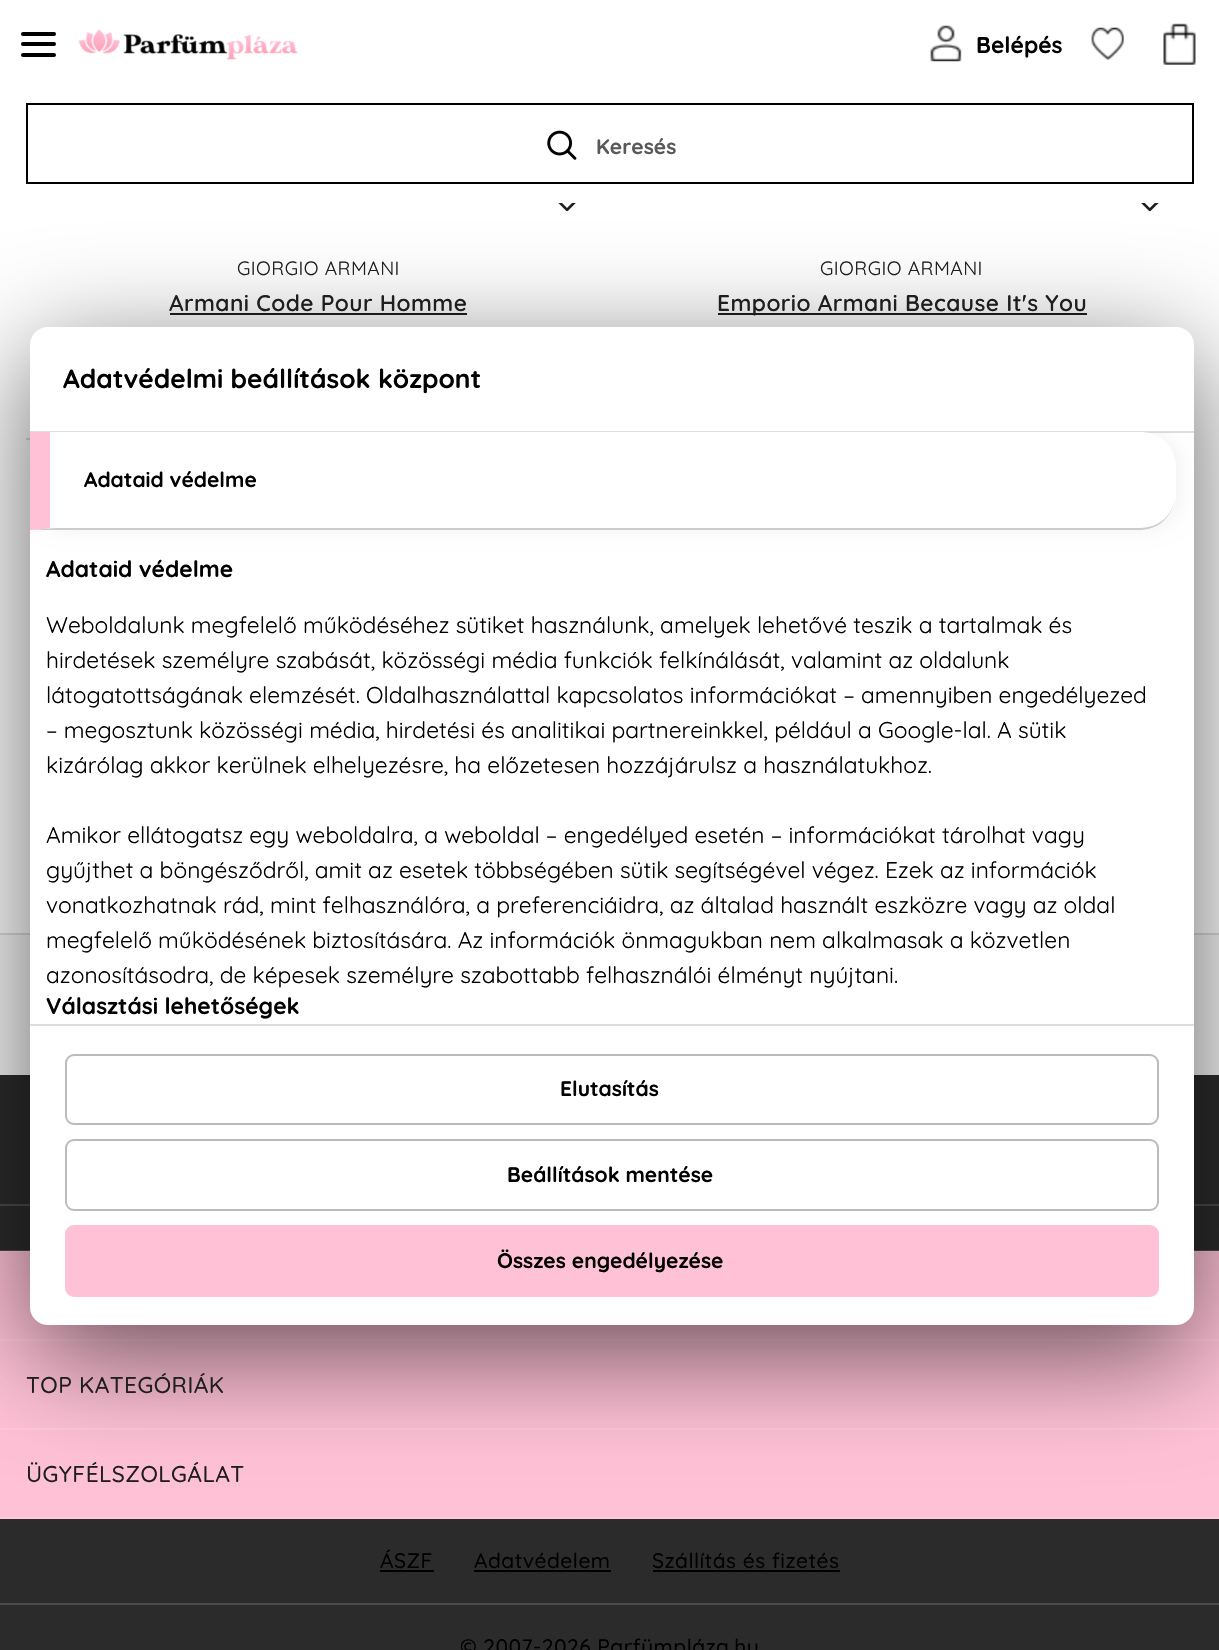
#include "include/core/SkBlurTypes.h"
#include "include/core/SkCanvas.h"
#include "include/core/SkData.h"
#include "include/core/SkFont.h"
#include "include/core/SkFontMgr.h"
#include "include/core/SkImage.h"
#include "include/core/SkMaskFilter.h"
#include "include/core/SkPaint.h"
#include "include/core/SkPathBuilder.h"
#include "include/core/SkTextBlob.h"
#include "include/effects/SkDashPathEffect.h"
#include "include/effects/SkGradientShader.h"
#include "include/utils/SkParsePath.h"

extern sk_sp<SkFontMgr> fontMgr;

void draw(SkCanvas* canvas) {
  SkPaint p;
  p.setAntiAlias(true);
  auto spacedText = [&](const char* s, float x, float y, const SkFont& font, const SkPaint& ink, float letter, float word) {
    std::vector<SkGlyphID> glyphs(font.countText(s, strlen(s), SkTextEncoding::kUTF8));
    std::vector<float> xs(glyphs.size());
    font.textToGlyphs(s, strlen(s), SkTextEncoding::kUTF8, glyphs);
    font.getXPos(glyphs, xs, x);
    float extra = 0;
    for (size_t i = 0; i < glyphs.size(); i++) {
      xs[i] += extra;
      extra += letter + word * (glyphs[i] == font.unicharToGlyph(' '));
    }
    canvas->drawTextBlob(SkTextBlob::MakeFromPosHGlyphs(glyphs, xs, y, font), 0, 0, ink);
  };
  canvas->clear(SkColorSetRGB(248, 247, 247));
  p.setColor(SK_ColorWHITE);
  canvas->drawRect(SkRect::MakeLTRB(0, 0, 1219, 203), p);
  p.setColor(SK_ColorBLACK);
  canvas->drawRoundRect(SkRect::MakeLTRB(21, 32, 56, 36), 2, 2, p);
  canvas->drawRoundRect(SkRect::MakeLTRB(21, 42, 56, 46), 2, 2, p);
  canvas->drawRoundRect(SkRect::MakeLTRB(21, 53, 56, 57), 2, 2, p);
  canvas->drawImageRect(SkImages::DeferredFromEncodedData(SkData::MakeFromFileName("images/1.png")), SkRect::MakeLTRB(78, 29, 298, 60), SkSamplingOptions());
  canvas->drawImageRect(SkImages::DeferredFromEncodedData(SkData::MakeFromFileName("images/2.png")), SkRect::MakeLTRB(930, 25, 962, 62), SkSamplingOptions());
  canvas->drawImageRect(SkImages::DeferredFromEncodedData(SkData::MakeFromFileName("images/3.png")), SkRect::MakeLTRB(1091, 27, 1124, 60), SkSamplingOptions());
  canvas->drawImageRect(SkImages::DeferredFromEncodedData(SkData::MakeFromFileName("images/4.png")), SkRect::MakeLTRB(1163, 23, 1196, 65), SkSamplingOptions());
  canvas->drawImageRect(SkImages::DeferredFromEncodedData(SkData::MakeFromFileName("images/5.png")), SkRect::MakeLTRB(547, 130, 577, 160), SkSamplingOptions());
  p.setStyle(SkPaint::kStroke_Style);
  p.setStrokeWidth(2);
  canvas->drawRect(SkRect::MakeLTRB(27, 104, 1193, 183), p);
  p.setStyle(SkPaint::kFill_Style);
  p.setColor(SkColorSetRGB(221, 221, 221));
  canvas->drawRect(SkRect::MakeLTRB(0, 933, 1219, 935), p);
  p.setColor(SK_ColorWHITE);
  canvas->drawRect(SkRect::MakeLTRB(0, 203, 1219, 933), p);
  canvas->drawImageRect(SkImages::DeferredFromEncodedData(SkData::MakeFromFileName("images/6.png")), SkRect::MakeLTRB(558, 203, 576, 212), SkSamplingOptions());
  p.setColor(SkColorSetRGB(30, 30, 30));
  canvas->drawRect(SkRect::MakeLTRB(170, 313, 467, 315), p);
  canvas->drawImageRect(SkImages::DeferredFromEncodedData(SkData::MakeFromFileName("images/7.png")), SkRect::MakeLTRB(1141, 203, 1159, 212), SkSamplingOptions());
  canvas->drawRect(SkRect::MakeLTRB(718, 313, 1087, 315), p);
  p.setColor(SkColorSetRGB(221, 221, 221));
  canvas->drawRect(SkRect::MakeLTRB(26, 438, 30, 440), p);
  p.setColor(SkColorSetRGB(255, 193, 214));
  canvas->drawRect(SkRect::MakeLTRB(0, 1252, 1219, 1517), p);
  p.setColor(SkColorSetRGB(255, 202, 220));
  canvas->drawRect(SkRect::MakeLTRB(0, 1251, 1219, 1252), p);
  p.setColor(SkColorSetRGB(43, 43, 43));
  canvas->drawRect(SkRect::MakeLTRB(0, 1075, 1219, 1250), p);
  p.setColor(SkColorSetRGB(75, 75, 75));
  canvas->drawRect(SkRect::MakeLTRB(0, 1250, 1219, 1251), p);
  canvas->drawRect(SkRect::MakeLTRB(0, 1204, 1219, 1206), p);
  p.setColor(SkColorSetRGB(255, 202, 220));
  canvas->drawRect(SkRect::MakeLTRB(0, 1339, 1219, 1341), p);
  canvas->drawRect(SkRect::MakeLTRB(0, 1428, 1219, 1430), p);
  canvas->drawRect(SkRect::MakeLTRB(0, 1517, 1219, 1519), p);
  p.setColor(SkColorSetRGB(43, 43, 43));
  canvas->drawRect(SkRect::MakeLTRB(0, 1519, 1219, 1650), p);
  p.setColor(SK_ColorBLACK);
  canvas->drawRect(SkRect::MakeLTRB(380, 1570, 434, 1572), p);
  canvas->drawRect(SkRect::MakeLTRB(474, 1570, 611, 1572), p);
  canvas->drawRect(SkRect::MakeLTRB(653, 1570, 840, 1572), p);
  p.setColor(SkColorSetRGB(75, 75, 75));
  canvas->drawRect(SkRect::MakeLTRB(0, 1603, 1219, 1605), p);
  p.setColor(SkColorSetARGB(153, 0, 0, 0));
  p.setMaskFilter(SkMaskFilter::MakeBlur(kNormal_SkBlurStyle, 56));
  canvas->drawRoundRect(SkRect::MakeLTRB(30, 355, 1194, 1353), 18, 18, p);
  p.setMaskFilter(nullptr);
  p.setColor(SK_ColorWHITE);
  canvas->drawRoundRect(SkRect::MakeLTRB(30, 327, 1194, 1325), 18, 18, p);
  p.setColor(SkColorSetRGB(221, 221, 221));
  canvas->drawRect(SkRect::MakeLTRB(30, 431, 1194, 433), p);
  canvas->drawRect(SkRect::MakeLTRB(30, 1024, 1194, 1026), p);
  canvas->save();
  canvas->clipRect(SkRect::MakeLTRB(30, 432, 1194, 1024));
  p.setColor(SkColorSetARGB(13, 0, 0, 0));
  p.setMaskFilter(SkMaskFilter::MakeBlur(kNormal_SkBlurStyle, 9));
  canvas->drawRoundRect(SkRect::MakeLTRB(33, 432, 1180, 530), 35, 35, p);
  p.setMaskFilter(nullptr);
  canvas->restore();
  p.setColor(SK_ColorWHITE);
  canvas->drawPath(SkPathBuilder().moveTo(30, 432).lineTo(1141, 432).cubicTo(1160.5f, 432, 1176, 447.5f, 1176, 467).lineTo(1176, 495).cubicTo(1176, 514.5f, 1160.5f, 530, 1141, 530).lineTo(30, 530).close().detach(), p);
  p.setColor(SkColorSetRGB(204, 204, 204));
  canvas->drawPath(SkPathBuilder().moveTo(56, 528).lineTo(32, 530).lineTo(1140, 530).cubicTo(1159, 530, 1175, 515, 1175, 495).cubicTo(1175, 514, 1159, 528, 1140, 528).close().detach(), p);
  canvas->save();
  canvas->clipRect(SkRect::MakeLTRB(30, 432, 1194, 1024));
  p.setColor(SkColorSetRGB(255, 193, 214));
  canvas->drawPath(SkPathBuilder().moveTo(32, 530).lineTo(29, 530).lineTo(29, 432).lineTo(50, 432).lineTo(50, 528).lineTo(56, 528).close().detach(), p);
  canvas->restore();
  p.setStyle(SkPaint::kStroke_Style);
  p.setColor(SkColorSetRGB(187, 187, 187));
  canvas->drawRoundRect(SkRect::MakeLTRB(66, 1055, 1158, 1124), 8, 8, p);
  canvas->drawRoundRect(SkRect::MakeLTRB(66, 1140, 1158, 1210), 8, 8, p);
  p.setStyle(SkPaint::kFill_Style);
  p.setColor(SkColorSetRGB(255, 193, 214));
  canvas->drawRoundRect(SkRect::MakeLTRB(66, 1226, 1158, 1296), 8, 8, p);
  p.setStyle(SkPaint::kStroke_Style);
  canvas->drawRoundRect(SkRect::MakeLTRB(66, 1226, 1158, 1296), 8, 8, p);
  SkFont font1(fontMgr->matchFamilyStyle("Quicksand", SkFontStyle::Bold()), 22.75f);
  font1.setSubpixel(true);
  p.setStyle(SkPaint::kFill_Style);
  p.setColor(SK_ColorBLACK);
  canvas->drawString("Belépés", 976, 53, font1, p);
  SkFont font2(fontMgr->matchFamilyStyle("Quicksand", SkFontStyle::Bold()), 21);
  font2.setSubpixel(true);
  p.setColor(SkColorSetRGB(89, 89, 89));
  canvas->drawString("Keresés", 596, 154, font2, p);
  SkFont font3(fontMgr->matchFamilyStyle("Quicksand", SkFontStyle::Normal()), 19.25f);
  font3.setSubpixel(true);
  p.setColor(SkColorSetRGB(30, 30, 30));
  spacedText("GIORGIO ARMANI", 237, 275, font3, p, 0.45f, 0);
  SkFont font4(fontMgr->matchFamilyStyle("Quicksand", SkFontStyle(600, SkFontStyle::kNormal_Width, SkFontStyle::kUpright_Slant)), 22.75f);
  font4.setSubpixel(true);
  spacedText("Armani Code Pour Homme", 169, 311, font4, p, 0.45f, 0);
  spacedText("GIORGIO ARMANI", 820, 275, font3, p, 0.45f, 0);
  spacedText("Emporio Armani Because It's You", 717, 311, font4, p, 0.45f, 0);
  SkFont font5(fontMgr->matchFamilyStyle("Quicksand", SkFontStyle(500, SkFontStyle::kNormal_Width, SkFontStyle::kUpright_Slant)), 22.75f);
  font5.setSubpixel(true);
  spacedText("TOP KATEGÓRIÁK", 26, 1393, font5, p, 0.45f, 0);
  spacedText("ÜGYFÉLSZOLGÁLAT", 26, 1482, font5, p, 0.45f, 0);
  SkFont font6(fontMgr->matchFamilyStyle("Quicksand", SkFontStyle(500, SkFontStyle::kNormal_Width, SkFontStyle::kUpright_Slant)), 21);
  font6.setSubpixel(true);
  p.setColor(SK_ColorBLACK);
  spacedText("ÁSZF", 380, 1568, font6, p, 0.45f, 0);
  spacedText("Adatvédelem", 474, 1568, font6, p, 0.45f, 0);
  spacedText("Szállítás és fizetés", 652, 1568, font6, p, 0.45f, 0);
  spacedText("© 2007-2026 Parfümpláza.hu", 460, 1654, font6, p, 0.45f, 0);
  SkFont font7(fontMgr->matchFamilyStyle("Quicksand", SkFontStyle::Bold()), 26.25f);
  font7.setSubpixel(true);
  canvas->drawString("Adatvédelmi beállítások központ", 63, 388, font7, p);
  canvas->drawString("Adataid védelme", 84, 487, font2, p);
  canvas->drawString("Adataid védelme", 46, 577, font1, p);
  SkFont font8(fontMgr->matchFamilyStyle("Quicksand", SkFontStyle::Normal()), 22.75f);
  font8.setSubpixel(true);
  canvas->drawString("Weboldalunk megfelelő működéséhez sütiket használunk, amelyek lehetővé teszik a tartalmak és", 46, 633, font8, p);
  canvas->drawString("hirdetések személyre szabását, közösségi média funkciók felkínálását, valamint az oldalunk", 46, 668, font8, p);
  canvas->drawString("látogatottságának elemzését. Oldalhasználattal kapcsolatos információkat – amennyiben engedélyezed", 46, 703, font8, p);
  canvas->drawString("– megosztunk közösségi média, hirdetési és analitikai partnereinkkel, például a Google-lal. A sütik", 46, 738, font8, p);
  canvas->drawString("kizárólag akkor kerülnek elhelyezésre, ha előzetesen hozzájárulsz a használatukhoz.", 46, 773, font8, p);
  canvas->drawString("Amikor ellátogatsz egy weboldalra, a weboldal – engedélyed esetén – információkat tárolhat vagy", 46, 843, font8, p);
  canvas->drawString("gyűjthet a böngésződről, amit az esetek többségében sütik segítségével végez. Ezek az információk", 46, 878, font8, p);
  canvas->drawString("vonatkozhatnak rád, mint felhasználóra, a preferenciáidra, az általad használt eszközre vagy az oldal", 46, 913, font8, p);
  canvas->drawString("megfelelő működésének biztosítására. Az információk önmagukban nem alkalmasak a közvetlen", 46, 948, font8, p);
  canvas->drawString("azonosításodra, de képesek személyre szabottabb felhasználói élményt nyújtani.", 46, 983, font8, p);
  canvas->drawString("Választási lehetőségek", 46, 1014, font1, p);
  canvas->drawString("Elutasítás", 560, 1096, font2, p);
  canvas->drawString("Beállítások mentése", 507, 1182, font2, p);
  canvas->drawString("Összes engedélyezése", 497, 1268, font2, p);
}
